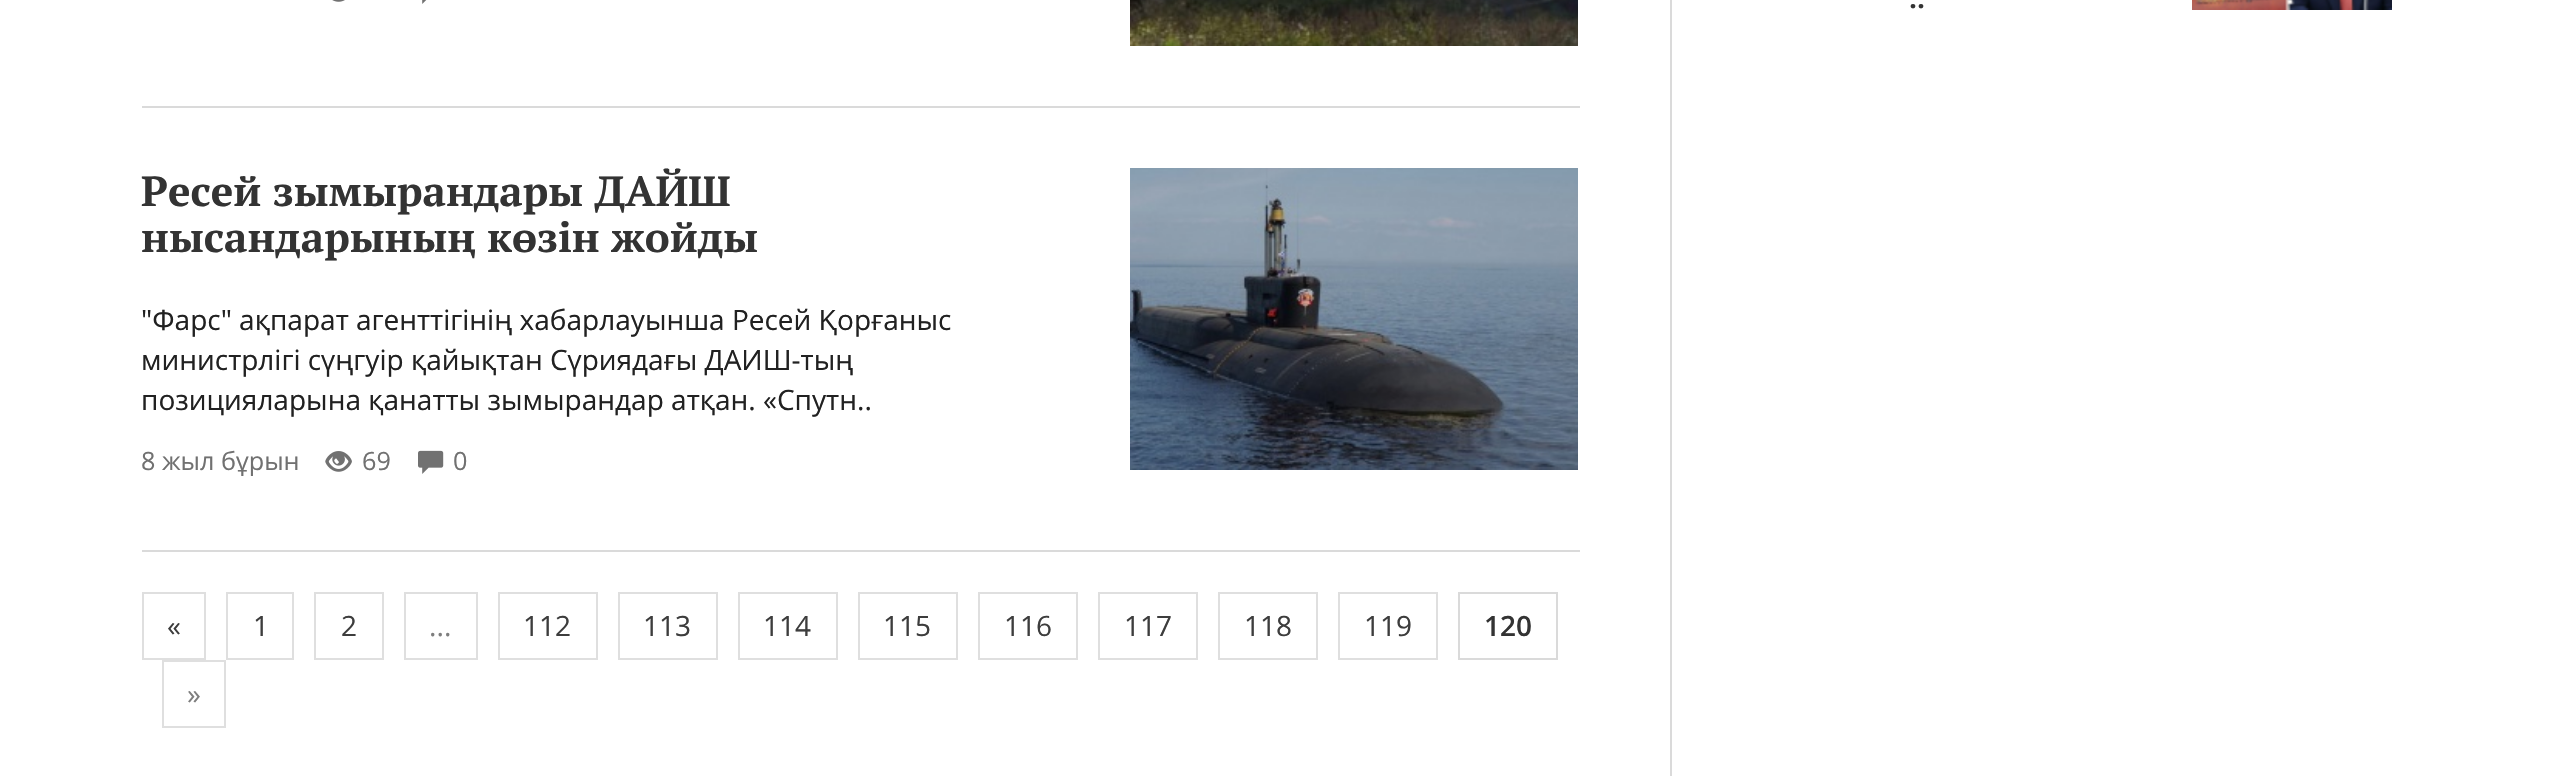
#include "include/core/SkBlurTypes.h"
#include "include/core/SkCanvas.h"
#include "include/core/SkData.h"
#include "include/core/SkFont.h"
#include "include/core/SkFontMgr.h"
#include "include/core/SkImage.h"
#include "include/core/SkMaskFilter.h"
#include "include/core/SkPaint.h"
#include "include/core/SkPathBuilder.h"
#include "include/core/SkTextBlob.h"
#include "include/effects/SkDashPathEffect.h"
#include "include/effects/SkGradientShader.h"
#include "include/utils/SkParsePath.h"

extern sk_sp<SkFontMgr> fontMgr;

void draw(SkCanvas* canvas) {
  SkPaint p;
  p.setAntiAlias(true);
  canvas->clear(SK_ColorWHITE);
  canvas->drawImageRect(SkImages::DeferredFromEncodedData(SkData::MakeFromFileName("images/1.png")), SkRect::MakeLTRB(2192, 0, 2392, 10), SkSamplingOptions());
  p.setColor(SkColorSetRGB(218, 218, 218));
  canvas->drawRect(SkRect::MakeLTRB(1670, 0, 1672, 776), p);
  canvas->drawRect(SkRect::MakeLTRB(142, 106, 1580, 108), p);
  canvas->drawImageRect(SkImages::DeferredFromEncodedData(SkData::MakeFromFileName("images/2.png")), SkRect::MakeLTRB(332, 0, 345, 2), SkSamplingOptions());
  canvas->drawImageRect(SkImages::DeferredFromEncodedData(SkData::MakeFromFileName("images/3.png")), SkRect::MakeLTRB(422, 0, 427, 4), SkSamplingOptions());
  canvas->drawImageRect(SkImages::DeferredFromEncodedData(SkData::MakeFromFileName("images/4.png")), SkRect::MakeLTRB(1130, 0, 1578, 46), SkSamplingOptions());
  canvas->drawRect(SkRect::MakeLTRB(142, 550, 1580, 552), p);
  canvas->drawImageRect(SkImages::DeferredFromEncodedData(SkData::MakeFromFileName("images/5.png")), SkRect::MakeLTRB(325, 451, 352, 472), SkSamplingOptions());
  canvas->drawImageRect(SkImages::DeferredFromEncodedData(SkData::MakeFromFileName("images/6.png")), SkRect::MakeLTRB(418, 450, 444, 474), SkSamplingOptions());
  canvas->drawImageRect(SkImages::DeferredFromEncodedData(SkData::MakeFromFileName("images/7.png")), SkRect::MakeLTRB(1130, 168, 1578, 470), SkSamplingOptions());
  p.setStyle(SkPaint::kStroke_Style);
  p.setStrokeWidth(2);
  p.setColor(SkColorSetRGB(223, 223, 223));
  canvas->drawRect(SkRect::MakeLTRB(143, 593, 205, 659), p);
  canvas->drawRect(SkRect::MakeLTRB(227, 593, 293, 659), p);
  canvas->drawRect(SkRect::MakeLTRB(315, 593, 383, 659), p);
  canvas->drawRect(SkRect::MakeLTRB(405, 593, 477, 659), p);
  canvas->drawRect(SkRect::MakeLTRB(499, 593, 597, 659), p);
  canvas->drawRect(SkRect::MakeLTRB(619, 593, 717, 659), p);
  canvas->drawRect(SkRect::MakeLTRB(739, 593, 837, 659), p);
  canvas->drawRect(SkRect::MakeLTRB(859, 593, 957, 659), p);
  canvas->drawRect(SkRect::MakeLTRB(979, 593, 1077, 659), p);
  canvas->drawRect(SkRect::MakeLTRB(1099, 593, 1197, 659), p);
  canvas->drawRect(SkRect::MakeLTRB(1219, 593, 1317, 659), p);
  canvas->drawRect(SkRect::MakeLTRB(1339, 593, 1437, 659), p);
  p.setColor(SkColorSetRGB(218, 218, 218));
  canvas->drawRect(SkRect::MakeLTRB(1459, 593, 1557, 659), p);
  p.setColor(SkColorSetRGB(223, 223, 223));
  canvas->drawRect(SkRect::MakeLTRB(163, 661, 225, 727), p);
  SkFont font1(fontMgr->matchFamilyStyle("PT Serif", SkFontStyle::Bold()), 27);
  font1.setSubpixel(true);
  p.setStyle(SkPaint::kFill_Style);
  p.setColor(SkColorSetRGB(51, 51, 51));
  canvas->drawString("..", 1909, 8, font1, p);
  SkFont font2(fontMgr->matchFamilyStyle("PT Serif", SkFontStyle::Bold()), 42);
  font2.setSubpixel(true);
  canvas->drawString("Ресей зымырандары ДАЙШ", 141, 206, font2, p);
  canvas->drawString("ныcандарының көзін жойды", 141, 252, font2, p);
  SkFont font3(fontMgr->matchFamilyStyle("Open Sans", SkFontStyle::Normal()), 28);
  font3.setSubpixel(true);
  p.setColor(SkColorSetRGB(33, 33, 33));
  canvas->drawString("\"Фарс\" ақпарат агенттігінің хабарлауынша Ресей Қорғаныс", 141, 330, font3, p);
  canvas->drawString("министрлігі сүңгуір қайықтан Сүриядағы ДАИШ-тың", 141, 370, font3, p);
  canvas->drawString("позицияларына қанатты зымырандар атқан. «Спутн..", 141, 410, font3, p);
  SkFont font4(fontMgr->matchFamilyStyle("Open Sans", SkFontStyle::Normal()), 25.25f);
  font4.setSubpixel(true);
  p.setColor(SkColorSetRGB(113, 113, 113));
  canvas->drawString("8 жыл бұрын", 141, 470, font4, p);
  canvas->drawString("69", 362, 470, font4, p);
  canvas->drawString("0", 453, 470, font4, p);
  p.setColor(SkColorSetRGB(61, 61, 61));
  canvas->drawString("«", 167, 636, font3, p);
  canvas->drawString("1", 253, 636, font3, p);
  canvas->drawString("2", 341, 636, font3, p);
  p.setColor(SkColorSetRGB(126, 126, 126));
  canvas->drawString("...", 429, 636, font3, p);
  p.setColor(SkColorSetRGB(61, 61, 61));
  canvas->drawString("112", 523, 636, font3, p);
  canvas->drawString("113", 643, 636, font3, p);
  canvas->drawString("114", 763, 636, font3, p);
  canvas->drawString("115", 883, 636, font3, p);
  canvas->drawString("116", 1004, 636, font3, p);
  canvas->drawString("117", 1124, 636, font3, p);
  canvas->drawString("118", 1244, 636, font3, p);
  canvas->drawString("119", 1364, 636, font3, p);
  SkFont font5(fontMgr->matchFamilyStyle("Open Sans", SkFontStyle(600, SkFontStyle::kNormal_Width, SkFontStyle::kUpright_Slant)), 28);
  font5.setSubpixel(true);
  p.setColor(SkColorSetRGB(51, 51, 51));
  canvas->drawString("120", 1484, 636, font5, p);
  p.setColor(SkColorSetRGB(126, 126, 126));
  canvas->drawString("»", 187, 704, font3, p);
}
